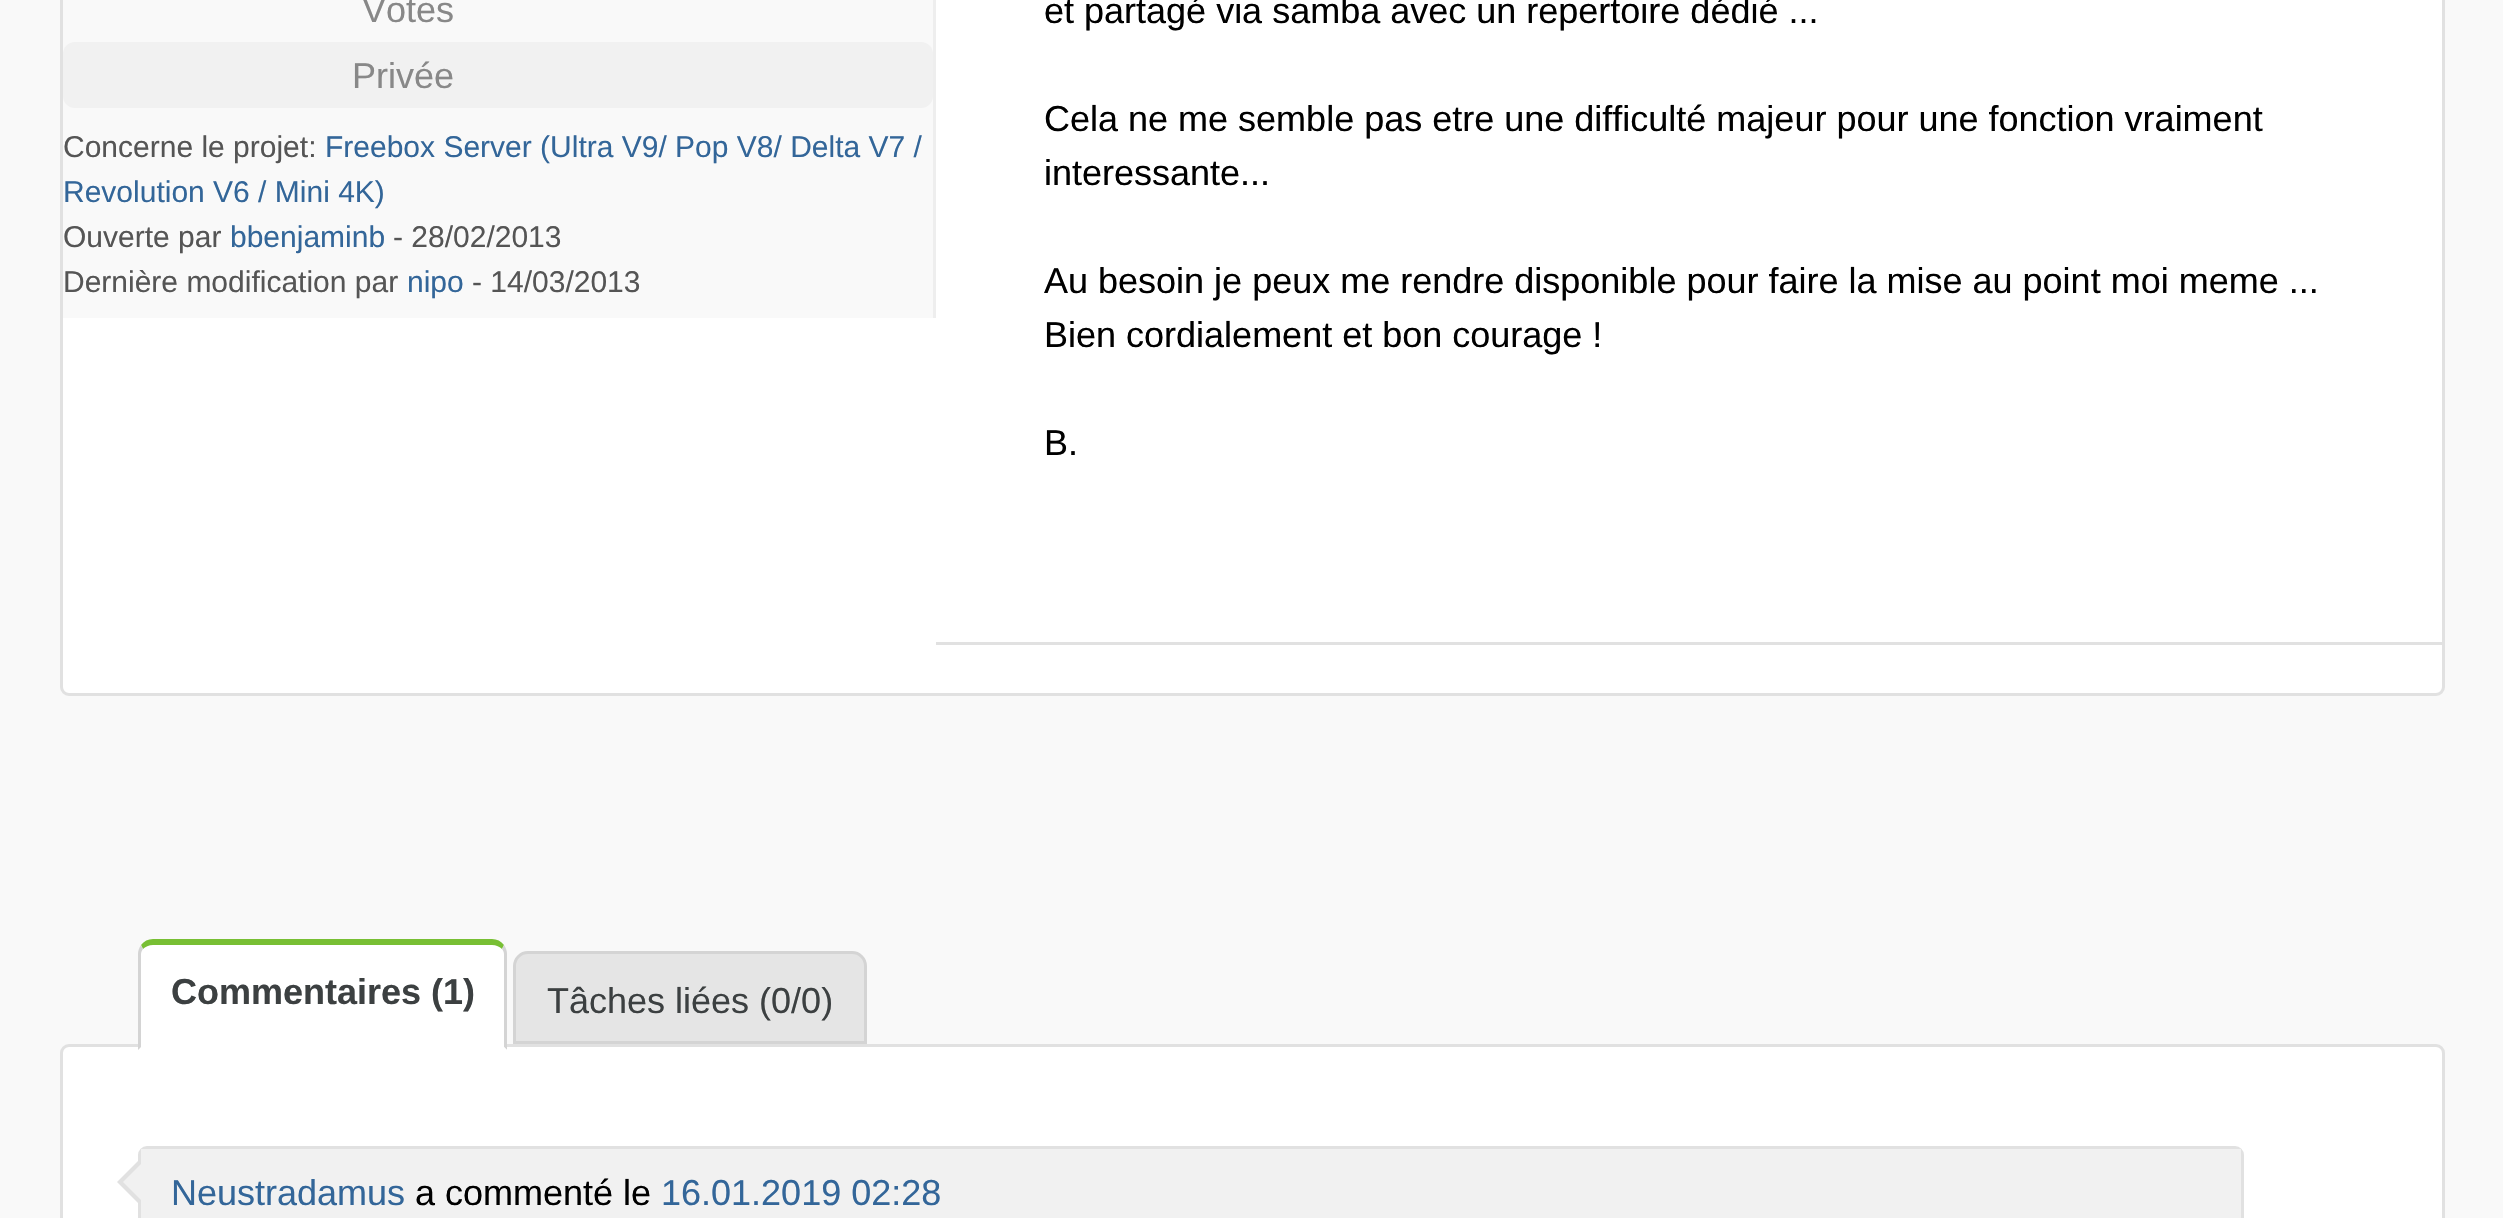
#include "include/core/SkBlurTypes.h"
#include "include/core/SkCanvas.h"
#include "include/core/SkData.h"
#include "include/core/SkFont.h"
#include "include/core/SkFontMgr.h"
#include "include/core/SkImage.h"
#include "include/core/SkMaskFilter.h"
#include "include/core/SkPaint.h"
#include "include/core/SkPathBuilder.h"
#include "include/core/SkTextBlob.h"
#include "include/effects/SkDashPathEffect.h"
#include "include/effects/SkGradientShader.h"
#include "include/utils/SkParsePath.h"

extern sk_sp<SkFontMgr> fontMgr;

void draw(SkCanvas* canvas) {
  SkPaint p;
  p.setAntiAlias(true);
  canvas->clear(SkColorSetRGB(249, 249, 249));
  p.setColor(SK_ColorWHITE);
  canvas->drawRoundRect(SkRect::MakeLTRB(61.5f, -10.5f, 2443.5f, 694.5f), 7.5f, 7.5f, p);
  p.setStyle(SkPaint::kStroke_Style);
  p.setStrokeWidth(3);
  p.setColor(SkColorSetRGB(225, 225, 225));
  canvas->drawRoundRect(SkRect::MakeLTRB(61.5f, -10.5f, 2443.5f, 694.5f), 7.5f, 7.5f, p);
  p.setStyle(SkPaint::kFill_Style);
  p.setColor(SkColorSetRGB(249, 249, 249));
  canvas->drawRect(SkRect::MakeLTRB(63, 0, 933, 318), p);
  p.setColor(SkColorSetRGB(238, 238, 238));
  canvas->drawRect(SkRect::MakeLTRB(933, 0, 936, 318), p);
  p.setColor(SkColorSetRGB(241, 241, 241));
  canvas->drawRoundRect(SkRect::MakeLTRB(63, 42, 933, 108), 12, 12, p);
  p.setColor(SkColorSetRGB(225, 225, 225));
  canvas->drawRect(SkRect::MakeLTRB(936, 642, 2442, 645), p);
  p.setColor(SK_ColorWHITE);
  canvas->drawRoundRect(SkRect::MakeLTRB(61.5f, 1045.5f, 2443.5f, 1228.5f), 7.5f, 7.5f, p);
  p.setStyle(SkPaint::kStroke_Style);
  p.setColor(SkColorSetRGB(225, 225, 225));
  canvas->drawRoundRect(SkRect::MakeLTRB(61.5f, 1045.5f, 2443.5f, 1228.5f), 7.5f, 7.5f, p);
  p.setStyle(SkPaint::kFill_Style);
  p.setColor(SK_ColorWHITE);
  canvas->drawPath(SkPathBuilder().moveTo(153, 945).lineTo(492, 945).cubicTo(499, 945, 504, 949, 504, 954).lineTo(504, 1047).lineTo(141, 1047).lineTo(141, 954).cubicTo(141, 949, 146, 945, 153, 945).close().detach(), p);
  p.setColor(SkColorSetRGB(120, 191, 52));
  canvas->drawPath(SkPathBuilder().moveTo(153, 939).cubicTo(148, 939, 144, 941, 141, 945).lineTo(143, 949).cubicTo(145, 947, 149, 945, 153, 945).lineTo(492, 945).cubicTo(496, 945, 500, 947, 502, 949).lineTo(504, 945).cubicTo(501, 941, 497, 939, 492, 939).close().detach(), p);
  p.setColor(SkColorSetRGB(212, 212, 212));
  canvas->drawPath(SkPathBuilder().moveTo(507, 1050).lineTo(507, 954).cubicTo(507, 951, 506, 948, 504, 945).lineTo(502, 949).cubicTo(503, 950, 504, 952, 504, 954).lineTo(504, 1047).close().detach(), p);
  p.setColor(SK_ColorWHITE);
  canvas->drawPath(SkPathBuilder().moveTo(507, 1050).lineTo(504, 1047).lineTo(141, 1047).lineTo(138, 1050).close().detach(), p);
  p.setColor(SkColorSetRGB(212, 212, 212));
  canvas->drawPath(SkPathBuilder().moveTo(138, 1050).lineTo(141, 1047).lineTo(141, 954).cubicTo(141, 952, 142, 950, 143, 949).lineTo(141, 945).cubicTo(139, 948, 138, 951, 138, 954).close().detach(), p);
  p.setColor(SkColorSetRGB(229, 229, 229));
  canvas->drawPath(SkPathBuilder().moveTo(528, 952.5f).lineTo(852, 952.5f).cubicTo(859.5f, 952.5f, 865.5f, 958.5f, 865.5f, 966).lineTo(865.5f, 1042.5f).lineTo(514.5f, 1042.5f).lineTo(514.5f, 966).cubicTo(514.5f, 958.5f, 520.5f, 952.5f, 528, 952.5f).close().detach(), p);
  p.setStyle(SkPaint::kStroke_Style);
  p.setColor(SkColorSetRGB(212, 212, 212));
  canvas->drawPath(SkPathBuilder().moveTo(528, 952.5f).lineTo(852, 952.5f).cubicTo(859.5f, 952.5f, 865.5f, 958.5f, 865.5f, 966).lineTo(865.5f, 1042.5f).lineTo(514.5f, 1042.5f).lineTo(514.5f, 966).cubicTo(514.5f, 958.5f, 520.5f, 952.5f, 528, 952.5f).close().detach(), p);
  p.setColor(SkColorSetRGB(225, 225, 225));
  canvas->drawRoundRect(SkRect::MakeLTRB(139.5f, 1147.5f, 2242.5f, 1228.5f), 7.5f, 7.5f, p);
  p.setStyle(SkPaint::kFill_Style);
  canvas->drawPath(SkPathBuilder().moveTo(141, 1158).lineTo(141, 1206).lineTo(117, 1182).close().detach(), p);
  p.setColor(SkColorSetRGB(241, 241, 241));
  canvas->drawPath(SkPathBuilder().moveTo(141, 1164).lineTo(141, 1200).lineTo(123, 1182).close().detach(), p);
  canvas->drawRect(SkRect::MakeLTRB(141, 1149, 2241, 1218), p);
  SkFont font1(fontMgr->matchFamilyStyle("Liberation Sans", SkFontStyle::Normal()), 36);
  font1.setSubpixel(true);
  p.setColor(SkColorSetRGB(136, 136, 136));
  canvas->drawString("Votes", 362, 22, font1, p);
  canvas->drawString("Privée", 352, 88, font1, p);
  SkFont font2(fontMgr->matchFamilyStyle("Liberation Sans", SkFontStyle::Normal()), 30);
  font2.setSubpixel(true);
  p.setColor(SkColorSetRGB(85, 85, 85));
  canvas->drawString("Concerne le projet:", 63, 157, font2, p);
  p.setColor(SkColorSetRGB(51, 102, 153));
  canvas->drawString("Freebox Server (Ultra V9/ Pop V8/ Delta V7 /", 325, 157, font2, p);
  canvas->drawString("Revolution V6 / Mini 4K)", 63, 202, font2, p);
  p.setColor(SkColorSetRGB(85, 85, 85));
  canvas->drawString("Ouverte par", 63, 247, font2, p);
  p.setColor(SkColorSetRGB(51, 102, 153));
  canvas->drawString("bbenjaminb", 230, 247, font2, p);
  p.setColor(SkColorSetRGB(85, 85, 85));
  canvas->drawString("- 28/02/2013", 393, 247, font2, p);
  canvas->drawString("Dernière modification par", 63, 292, font2, p);
  p.setColor(SkColorSetRGB(51, 102, 153));
  canvas->drawString("nipo", 407, 292, font2, p);
  p.setColor(SkColorSetRGB(85, 85, 85));
  canvas->drawString("- 14/03/2013", 472, 292, font2, p);
  p.setColor(SK_ColorBLACK);
  canvas->drawString("et partagé via samba avec un repertoire dédié ...", 1044, 23, font1, p);
  canvas->drawString("Cela ne me semble pas etre une difficulté majeur pour une fonction vraiment", 1044, 131, font1, p);
  canvas->drawString("interessante...", 1044, 185, font1, p);
  canvas->drawString("Au besoin je peux me rendre disponible pour faire la mise au point moi meme ...", 1044, 293, font1, p);
  canvas->drawString("Bien cordialement et bon courage !", 1044, 347, font1, p);
  canvas->drawString("B.", 1044, 455, font1, p);
  SkFont font3(fontMgr->matchFamilyStyle("Liberation Sans", SkFontStyle::Bold()), 36);
  font3.setSubpixel(true);
  p.setColor(SkColorSetRGB(60, 64, 65));
  canvas->drawString("Commentaires (1)", 171, 1004, font3, p);
  canvas->drawString("Tâches liées (0/0)", 547, 1013, font1, p);
  p.setColor(SkColorSetRGB(51, 102, 153));
  canvas->drawString("Neustradamus", 171, 1205, font1, p);
  p.setColor(SK_ColorBLACK);
  canvas->drawString("a commenté le", 415, 1205, font1, p);
  p.setColor(SkColorSetRGB(51, 102, 153));
  canvas->drawString("16.01.2019 02:28", 661, 1205, font1, p);
}
